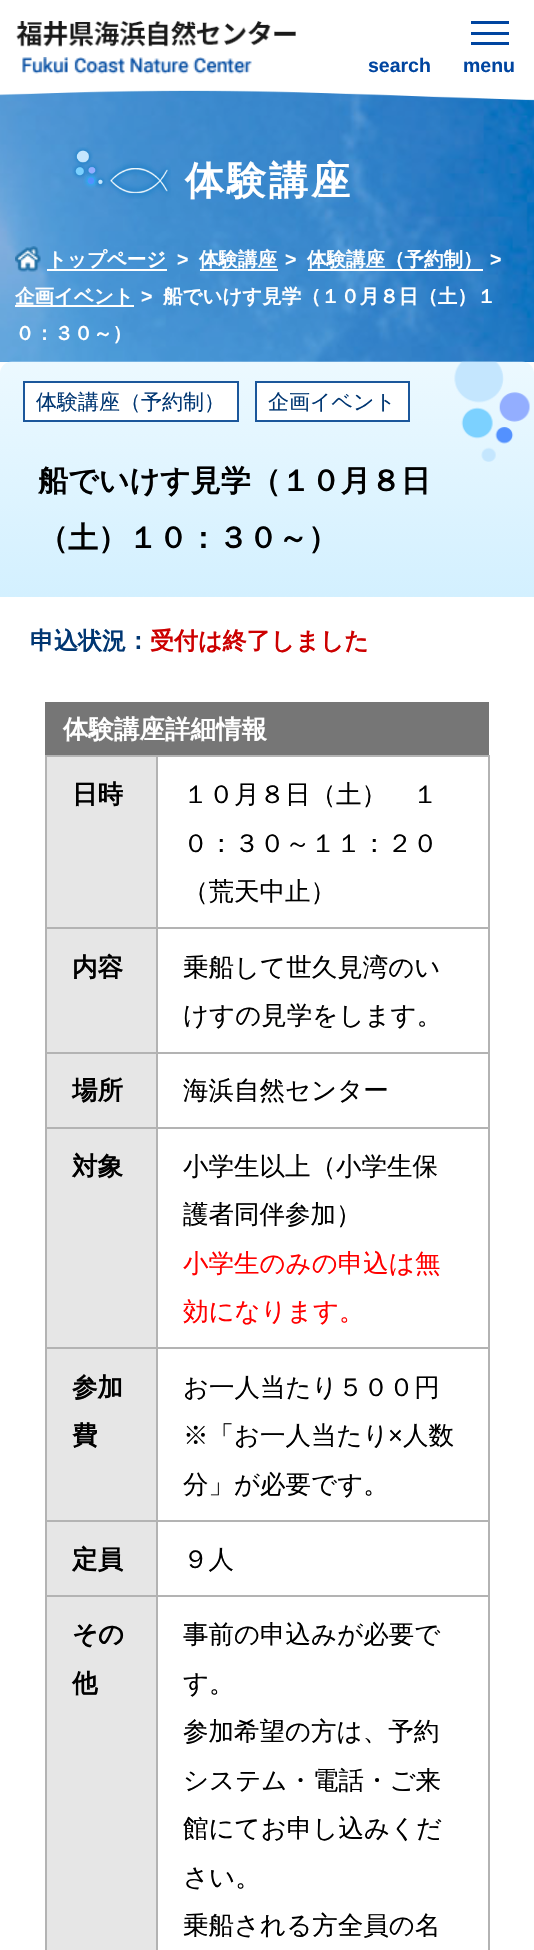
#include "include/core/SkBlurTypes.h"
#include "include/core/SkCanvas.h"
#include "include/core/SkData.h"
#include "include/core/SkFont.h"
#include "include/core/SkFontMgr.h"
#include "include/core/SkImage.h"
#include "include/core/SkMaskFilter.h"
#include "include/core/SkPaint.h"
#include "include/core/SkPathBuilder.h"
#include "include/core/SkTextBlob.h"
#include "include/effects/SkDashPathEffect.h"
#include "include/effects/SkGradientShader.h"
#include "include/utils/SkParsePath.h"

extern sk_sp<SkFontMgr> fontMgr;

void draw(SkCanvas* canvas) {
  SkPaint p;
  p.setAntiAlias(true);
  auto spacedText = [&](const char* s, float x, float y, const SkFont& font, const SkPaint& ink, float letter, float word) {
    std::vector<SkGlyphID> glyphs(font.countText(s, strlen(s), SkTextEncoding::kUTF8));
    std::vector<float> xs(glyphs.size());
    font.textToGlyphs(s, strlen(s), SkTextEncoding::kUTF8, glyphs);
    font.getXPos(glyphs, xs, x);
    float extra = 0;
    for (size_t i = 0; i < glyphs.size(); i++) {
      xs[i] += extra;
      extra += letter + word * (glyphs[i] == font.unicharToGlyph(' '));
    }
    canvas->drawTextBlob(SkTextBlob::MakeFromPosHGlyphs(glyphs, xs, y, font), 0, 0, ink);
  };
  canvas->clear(SK_ColorWHITE);
  canvas->drawImageRect(SkImages::DeferredFromEncodedData(SkData::MakeFromFileName("images/1.png")), SkRect::MakeLTRB(0, 90, 534, 362), SkSamplingOptions());
  canvas->drawImageRect(SkImages::DeferredFromEncodedData(SkData::MakeFromFileName("images/2.png")), SkRect::MakeLTRB(16, 21, 296, 47), SkSamplingOptions());
  canvas->drawImageRect(SkImages::DeferredFromEncodedData(SkData::MakeFromFileName("images/3.png")), SkRect::MakeLTRB(22, 57, 252, 74), SkSamplingOptions());
  p.setColor(SkColorSetRGB(0, 69, 160));
  canvas->drawRect(SkRect::MakeLTRB(471, 21, 509, 24), p);
  canvas->drawRect(SkRect::MakeLTRB(471, 32, 509, 35), p);
  canvas->drawRect(SkRect::MakeLTRB(471, 42, 509, 45), p);
  p.setColor(SkColorSetARGB(77, 0, 74, 171));
  canvas->drawRect(SkRect::MakeLTRB(0, 90, 534, 243), p);
  canvas->drawImageRect(SkImages::DeferredFromEncodedData(SkData::MakeFromFileName("images/4.png")), SkRect::MakeLTRB(0, 90, 534, 101), SkSamplingOptions());
  canvas->drawImageRect(SkImages::DeferredFromEncodedData(SkData::MakeFromFileName("images/5.png")), SkRect::MakeLTRB(72, 147, 171, 199), SkSamplingOptions());
  canvas->drawRect(SkRect::MakeLTRB(0, 243, 534, 362), p);
  canvas->drawImageRect(SkImages::DeferredFromEncodedData(SkData::MakeFromFileName("images/6.png")), SkRect::MakeLTRB(15, 246, 41, 272), SkSamplingOptions());
  p.setColor(SK_ColorWHITE);
  canvas->drawRect(SkRect::MakeLTRB(47, 269, 167, 271), p);
  canvas->drawRect(SkRect::MakeLTRB(200, 269, 278, 271), p);
  canvas->drawRect(SkRect::MakeLTRB(308, 269, 483, 271), p);
  canvas->drawRect(SkRect::MakeLTRB(15, 305, 134, 307), p);
  canvas->drawImageRect(SkImages::DeferredFromEncodedData(SkData::MakeFromFileName("images/7.png")), SkRect::MakeLTRB(0, 361, 534, 597), SkSamplingOptions());
  canvas->drawRect(SkRect::MakeLTRB(24, 382, 238, 421), p);
  p.setStyle(SkPaint::kStroke_Style);
  p.setStrokeWidth(2);
  p.setColor(SkColorSetRGB(27, 87, 155));
  canvas->drawRect(SkRect::MakeLTRB(24, 382, 238, 421), p);
  p.setStyle(SkPaint::kFill_Style);
  p.setColor(SK_ColorWHITE);
  canvas->drawRect(SkRect::MakeLTRB(256, 382, 409, 421), p);
  p.setStyle(SkPaint::kStroke_Style);
  p.setColor(SkColorSetRGB(27, 87, 155));
  canvas->drawRect(SkRect::MakeLTRB(256, 382, 409, 421), p);
  p.setStyle(SkPaint::kFill_Style);
  p.setColor(SkColorSetRGB(118, 118, 118));
  canvas->drawRect(SkRect::MakeLTRB(45, 702, 489, 755), p);
  p.setColor(SkColorSetRGB(230, 230, 230));
  canvas->drawRect(SkRect::MakeLTRB(47, 757, 156, 927), p);
  p.setColor(SkColorSetRGB(179, 179, 179));
  canvas->drawRect(SkRect::MakeLTRB(156, 755, 489, 757), p);
  canvas->drawRect(SkRect::MakeLTRB(156, 927, 489, 929), p);
  canvas->drawRect(SkRect::MakeLTRB(156, 1052, 489, 1054), p);
  canvas->drawRect(SkRect::MakeLTRB(156, 1127, 489, 1129), p);
  canvas->drawRect(SkRect::MakeLTRB(156, 1347, 489, 1349), p);
  canvas->drawRect(SkRect::MakeLTRB(156, 1520, 489, 1522), p);
  canvas->drawRect(SkRect::MakeLTRB(156, 1595, 489, 1597), p);
  canvas->drawRect(SkRect::MakeLTRB(156, 1595, 158, 1950), p);
  canvas->drawRect(SkRect::MakeLTRB(45, 1595, 158, 1597), p);
  canvas->drawRect(SkRect::MakeLTRB(156, 1520, 158, 1596), p);
  canvas->drawRect(SkRect::MakeLTRB(45, 1520, 158, 1522), p);
  canvas->drawRect(SkRect::MakeLTRB(156, 1347, 158, 1521), p);
  canvas->drawRect(SkRect::MakeLTRB(45, 1347, 158, 1349), p);
  canvas->drawRect(SkRect::MakeLTRB(156, 1127, 158, 1349), p);
  canvas->drawRect(SkRect::MakeLTRB(45, 1127, 158, 1129), p);
  canvas->drawRect(SkRect::MakeLTRB(156, 1052, 158, 1128), p);
  canvas->drawRect(SkRect::MakeLTRB(45, 1052, 158, 1054), p);
  canvas->drawRect(SkRect::MakeLTRB(156, 927, 158, 1053), p);
  canvas->drawRect(SkRect::MakeLTRB(45, 927, 158, 929), p);
  canvas->drawRect(SkRect::MakeLTRB(156, 755, 158, 929), p);
  canvas->drawRect(SkRect::MakeLTRB(45, 755, 158, 757), p);
  canvas->drawRect(SkRect::MakeLTRB(45, 1595, 47, 1950), p);
  canvas->drawRect(SkRect::MakeLTRB(45, 1520, 47, 1596), p);
  canvas->drawRect(SkRect::MakeLTRB(45, 1347, 47, 1521), p);
  canvas->drawRect(SkRect::MakeLTRB(45, 1127, 47, 1349), p);
  canvas->drawRect(SkRect::MakeLTRB(45, 1052, 47, 1128), p);
  canvas->drawRect(SkRect::MakeLTRB(45, 927, 47, 1053), p);
  canvas->drawRect(SkRect::MakeLTRB(45, 755, 47, 929), p);
  canvas->drawRect(SkRect::MakeLTRB(488, 1595, 490, 1950), p);
  canvas->drawRect(SkRect::MakeLTRB(488, 1520, 490, 1596), p);
  canvas->drawRect(SkRect::MakeLTRB(488, 1347, 490, 1521), p);
  canvas->drawRect(SkRect::MakeLTRB(488, 1127, 490, 1349), p);
  canvas->drawRect(SkRect::MakeLTRB(488, 1052, 490, 1128), p);
  canvas->drawRect(SkRect::MakeLTRB(488, 927, 490, 1053), p);
  canvas->drawRect(SkRect::MakeLTRB(488, 755, 490, 929), p);
  p.setColor(SkColorSetRGB(230, 230, 230));
  canvas->drawRect(SkRect::MakeLTRB(47, 929, 156, 1052), p);
  canvas->drawRect(SkRect::MakeLTRB(47, 1054, 156, 1127), p);
  canvas->drawRect(SkRect::MakeLTRB(47, 1129, 156, 1347), p);
  canvas->drawRect(SkRect::MakeLTRB(47, 1349, 156, 1520), p);
  canvas->drawRect(SkRect::MakeLTRB(47, 1522, 156, 1595), p);
  canvas->drawRect(SkRect::MakeLTRB(47, 1597, 156, 1950), p);
  SkFont font1(fontMgr->matchFamilyStyle("Liberation Sans", SkFontStyle::Bold()), 19.5f);
  font1.setSubpixel(true);
  p.setColor(SkColorSetRGB(0, 69, 160));
  canvas->drawString("search", 368, 72, font1, p);
  canvas->drawString("menu", 463, 72, font1, p);
  SkFont font2(fontMgr->matchFamilyStyle("WenQuanYi Zen Hei", SkFontStyle::Bold()), 39);
  font2.setSubpixel(true);
  p.setColor(SK_ColorWHITE);
  spacedText("体験講座", 185, 194, font2, p, 3, 0);
  SkFont font3(fontMgr->matchFamilyStyle("WenQuanYi Zen Hei", SkFontStyle::Bold()), 19.5f);
  font3.setSubpixel(true);
  canvas->drawString("トップページ", 47, 266, font3, p);
  canvas->drawString(">", 177, 266, font1, p);
  canvas->drawString("体験講座", 199, 266, font3, p);
  canvas->drawString(">", 285, 266, font1, p);
  canvas->drawString("体験講座（予約制）", 307, 266, font3, p);
  canvas->drawString(">", 490, 266, font1, p);
  canvas->drawString("企画イベント", 15, 303, font3, p);
  canvas->drawString(">", 141, 303, font1, p);
  canvas->drawString("船でいけす見学（１０月８日（土）１", 163, 303, font3, p);
  canvas->drawString("０：３０～）", 15, 340, font3, p);
  SkFont font4(fontMgr->matchFamilyStyle("WenQuanYi Zen Hei", SkFontStyle(500, SkFontStyle::kNormal_Width, SkFontStyle::kUpright_Slant)), 21);
  font4.setSubpixel(true);
  p.setColor(SkColorSetRGB(0, 54, 114));
  canvas->drawString("体験講座（予約制）", 36, 409, font4, p);
  canvas->drawString("企画イベント", 268, 409, font4, p);
  SkFont font5(fontMgr->matchFamilyStyle("WenQuanYi Zen Hei", SkFontStyle::Bold()), 30);
  font5.setSubpixel(true);
  p.setColor(SK_ColorBLACK);
  canvas->drawString("船でいけす見学（１０月８日", 38, 491, font5, p);
  canvas->drawString("（土）１０：３０～）", 38, 548, font5, p);
  SkFont font6(fontMgr->matchFamilyStyle("WenQuanYi Zen Hei", SkFontStyle::Bold()), 24);
  font6.setSubpixel(true);
  p.setColor(SkColorSetRGB(0, 54, 114));
  canvas->drawString("申込状況：", 30, 649, font6, p);
  p.setColor(SkColorSetRGB(204, 0, 0));
  canvas->drawString("受付は終了しました", 150, 649, font6, p);
  SkFont font7(fontMgr->matchFamilyStyle("WenQuanYi Zen Hei", SkFontStyle::Bold()), 25.5f);
  font7.setSubpixel(true);
  p.setColor(SK_ColorWHITE);
  canvas->drawString("体験講座詳細情報", 63, 738, font7, p);
  p.setColor(SK_ColorBLACK);
  canvas->drawString("日時", 72, 803, font7, p);
  SkFont font8(fontMgr->matchFamilyStyle("WenQuanYi Zen Hei", SkFontStyle(500, SkFontStyle::kNormal_Width, SkFontStyle::kUpright_Slant)), 25.5f);
  font8.setSubpixel(true);
  canvas->drawString("１０月８日（土）　１", 183, 803, font8, p);
  canvas->drawString("０：３０～１１：２０", 183, 852, font8, p);
  canvas->drawString("（荒天中止）", 183, 900, font8, p);
  canvas->drawString("内容", 72, 976, font7, p);
  canvas->drawString("乗船して世久見湾のい", 183, 976, font8, p);
  canvas->drawString("けすの見学をします。", 183, 1024, font8, p);
  canvas->drawString("場所", 72, 1099, font7, p);
  canvas->drawString("海浜自然センター", 183, 1099, font8, p);
  canvas->drawString("対象", 72, 1175, font7, p);
  canvas->drawString("小学生以上（小学生保", 183, 1175, font8, p);
  canvas->drawString("護者同伴参加）", 183, 1223, font8, p);
  p.setColor(SkColorSetRGB(255, 0, 0));
  canvas->drawString("小学生のみの申込は無", 183, 1272, font8, p);
  canvas->drawString("効になります。", 183, 1320, font8, p);
  p.setColor(SK_ColorBLACK);
  canvas->drawString("参加", 72, 1396, font7, p);
  canvas->drawString("費", 72, 1444, font7, p);
  canvas->drawString("お一人当たり５００円", 183, 1396, font8, p);
  canvas->drawString("※「お一人当たり", 183, 1444, font8, p);
  SkFont font9(fontMgr->matchFamilyStyle("Liberation Sans", SkFontStyle::Normal()), 25.5f);
  font9.setSubpixel(true);
  canvas->drawString("×", 388, 1444, font9, p);
  canvas->drawString("人数", 403, 1444, font8, p);
  canvas->drawString("分」が必要です。", 183, 1493, font8, p);
  canvas->drawString("定員", 72, 1568, font7, p);
  canvas->drawString("９人", 183, 1568, font8, p);
  canvas->drawString("その", 72, 1643, font7, p);
  canvas->drawString("他", 72, 1692, font7, p);
  canvas->drawString("事前の申込みが必要で", 183, 1643, font8, p);
  canvas->drawString("す。", 183, 1692, font8, p);
  canvas->drawString("参加希望の方は、予約", 183, 1740, font8, p);
  canvas->drawString("システム・電話・ご来", 183, 1789, font8, p);
  canvas->drawString("館にてお申し込みくだ", 183, 1837, font8, p);
  canvas->drawString("さい。", 183, 1886, font8, p);
  canvas->drawString("乗船される方全員の名", 183, 1934, font8, p);
}
